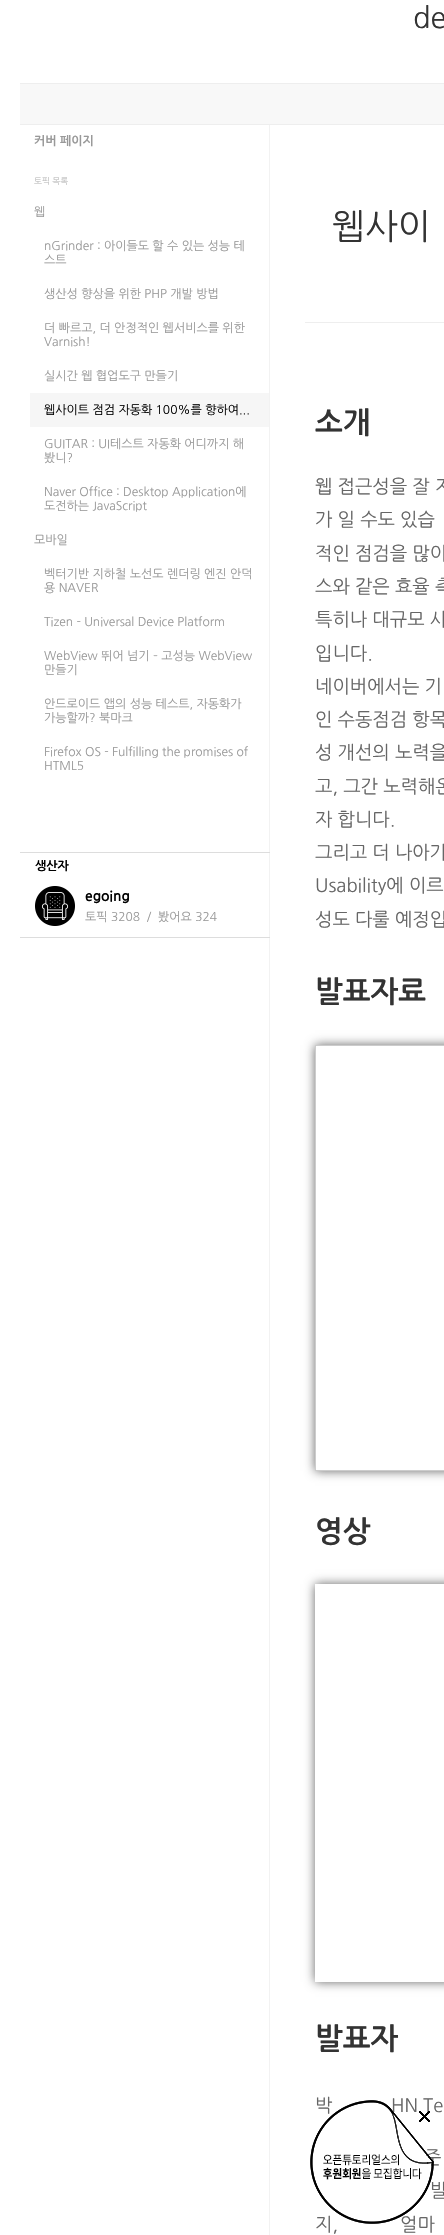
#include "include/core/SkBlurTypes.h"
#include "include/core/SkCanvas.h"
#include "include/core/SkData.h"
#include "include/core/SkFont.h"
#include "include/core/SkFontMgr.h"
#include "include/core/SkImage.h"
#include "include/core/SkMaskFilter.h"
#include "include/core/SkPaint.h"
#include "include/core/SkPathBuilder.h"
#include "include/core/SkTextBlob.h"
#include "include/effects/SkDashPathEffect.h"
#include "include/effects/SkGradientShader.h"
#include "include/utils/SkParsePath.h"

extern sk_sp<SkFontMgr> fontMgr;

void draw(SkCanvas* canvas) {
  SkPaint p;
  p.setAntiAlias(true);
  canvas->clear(SK_ColorWHITE);
  p.setColor(SkColorSetRGB(248, 248, 248));
  canvas->drawRect(SkRect::MakeLTRB(20, 84, 444, 124), p);
  p.setColor(SkColorSetRGB(238, 238, 238));
  canvas->drawRect(SkRect::MakeLTRB(20, 83, 444, 84), p);
  canvas->drawRect(SkRect::MakeLTRB(20, 124, 444, 125), p);
  p.setColor(SkColorSetRGB(242, 242, 242));
  canvas->drawRect(SkRect::MakeLTRB(269, 125, 270, 2235), p);
  p.setColor(SkColorSetRGB(246, 246, 246));
  canvas->drawRect(SkRect::MakeLTRB(30, 393, 269, 427), p);
  p.setColor(SkColorSetRGB(221, 221, 221));
  canvas->drawRect(SkRect::MakeLTRB(20, 852, 270, 853), p);
  canvas->drawRect(SkRect::MakeLTRB(20, 937, 270, 938), p);
  canvas->drawImageRect(SkImages::DeferredFromEncodedData(SkData::MakeFromFileName("images/1.png")), SkRect::MakeLTRB(35, 886, 75, 926), SkSamplingOptions());
  p.setColor(SkColorSetRGB(238, 238, 238));
  canvas->drawRect(SkRect::MakeLTRB(305, 322, 444, 323), p);
  canvas->save();
  canvas->clipPath(SkPathBuilder(SkPathFillType::kEvenOdd).moveTo(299, 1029).lineTo(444, 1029).lineTo(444, 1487).lineTo(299, 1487).close().moveTo(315, 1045).lineTo(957, 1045).lineTo(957, 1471).lineTo(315, 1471).close().detach(), true);
  p.setColor(SkColorSetRGB(102, 102, 102));
  p.setMaskFilter(SkMaskFilter::MakeBlur(kNormal_SkBlurStyle, 5));
  canvas->drawRect(SkRect::MakeLTRB(315, 1045, 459, 1471), p);
  p.setMaskFilter(nullptr);
  canvas->restore();
  p.setStyle(SkPaint::kStroke_Style);
  p.setStrokeWidth(1);
  p.setColor(SkColorSetRGB(204, 204, 204));
  canvas->drawRect(SkRect::MakeLTRB(315.5f, 1045.5f, 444.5f, 1470.5f), p);
  canvas->save();
  canvas->clipPath(SkPathBuilder(SkPathFillType::kEvenOdd).moveTo(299, 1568).lineTo(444, 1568).lineTo(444, 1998).lineTo(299, 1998).close().moveTo(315, 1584).lineTo(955, 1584).lineTo(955, 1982).lineTo(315, 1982).close().detach(), true);
  p.setStyle(SkPaint::kFill_Style);
  p.setColor(SkColorSetRGB(102, 102, 102));
  p.setMaskFilter(SkMaskFilter::MakeBlur(kNormal_SkBlurStyle, 5));
  canvas->drawRect(SkRect::MakeLTRB(315, 1584, 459, 1982), p);
  p.setMaskFilter(nullptr);
  canvas->restore();
  SkFont font1(fontMgr->matchFamilyStyle("NanumGothic", SkFontStyle::Normal()), 29);
  font1.setSubpixel(true);
  p.setColor(SkColorSetRGB(51, 51, 51));
  canvas->drawString("de", 413, 28, font1, p);
  SkFont font2(fontMgr->matchFamilyStyle("NanumGothic", SkFontStyle::Bold()), 12);
  font2.setSubpixel(true);
  p.setColor(SkColorSetRGB(153, 153, 153));
  canvas->drawString("커버 페이지", 34, 145, font2, p);
  SkFont font3(fontMgr->matchFamilyStyle("NanumGothic", SkFontStyle::Normal()), 8.5f);
  font3.setSubpixel(true);
  p.setColor(SkColorSetRGB(187, 187, 187));
  canvas->drawString("토픽 목록", 34, 184, font3, p);
  SkFont font4(fontMgr->matchFamilyStyle("NanumGothic", SkFontStyle::Normal()), 12);
  font4.setSubpixel(true);
  p.setColor(SkColorSetRGB(153, 153, 153));
  canvas->drawString("웹", 34, 216, font4, p);
  canvas->drawString("nGrinder : 아이들도 할 수 있는 성능 테", 44, 250, font4, p);
  canvas->drawString("스트", 44, 264, font4, p);
  canvas->drawString("생산성 향상을 위한 PHP 개발 방법", 44, 298, font4, p);
  canvas->drawString("더 빠르고, 더 안정적인 웹서비스를 위한", 44, 332, font4, p);
  canvas->drawString("Varnish!", 44, 346, font4, p);
  canvas->drawString("실시간 웹 협업도구 만들기", 44, 380, font4, p);
  p.setColor(SK_ColorBLACK);
  canvas->drawString("웹사이트 점검 자동화 100%를 향하여...", 44, 414, font4, p);
  p.setColor(SkColorSetRGB(153, 153, 153));
  canvas->drawString("GUITAR : UI테스트 자동화 어디까지 해", 44, 448, font4, p);
  canvas->drawString("봤니?", 44, 462, font4, p);
  canvas->drawString("Naver Office : Desktop Application에", 44, 496, font4, p);
  canvas->drawString("도전하는 JavaScript", 44, 510, font4, p);
  canvas->drawString("모바일", 34, 544, font4, p);
  canvas->drawString("벡터기반 지하철 노선도 렌더링 엔진 안덕", 44, 578, font4, p);
  canvas->drawString("용 NAVER", 44, 592, font4, p);
  canvas->drawString("Tizen - Universal Device Platform", 44, 626, font4, p);
  canvas->drawString("WebView 뛰어 넘기 – 고성능 WebView", 44, 660, font4, p);
  canvas->drawString("만들기", 44, 674, font4, p);
  canvas->drawString("안드로이드 앱의 성능 테스트, 자동화가", 44, 708, font4, p);
  canvas->drawString("가능할까? 북마크", 44, 722, font4, p);
  canvas->drawString("Firefox OS - Fulfilling the promises of", 44, 756, font4, p);
  canvas->drawString("HTML5", 44, 770, font4, p);
  p.setColor(SK_ColorBLACK);
  canvas->drawString("생산자", 35, 870, font2, p);
  SkFont font5(fontMgr->matchFamilyStyle("NanumGothic", SkFontStyle::Bold()), 14);
  font5.setSubpixel(true);
  canvas->drawString("egoing", 85, 901, font5, p);
  p.setColor(SkColorSetRGB(153, 153, 153));
  canvas->drawString("토픽 3208  /  봤어요 324", 85, 921, font4, p);
  SkFont font6(fontMgr->matchFamilyStyle("NanumGothic", SkFontStyle::Normal()), 35);
  font6.setSubpixel(true);
  p.setColor(SkColorSetRGB(51, 51, 51));
  canvas->drawString("웹사이", 332, 239, font6, p);
  SkFont font7(fontMgr->matchFamilyStyle("NanumGothic", SkFontStyle::Bold()), 29.5f);
  font7.setSubpixel(true);
  canvas->drawString("소개", 315, 433, font7, p);
  SkFont font8(fontMgr->matchFamilyStyle("NanumGothic", SkFontStyle::Normal()), 18.5f);
  font8.setSubpixel(true);
  p.setColor(SkColorSetRGB(102, 102, 102));
  canvas->drawString("웹 접근성을 잘 지", 315, 493, font8, p);
  canvas->drawString("가 일 수도 있습", 315, 526, font8, p);
  canvas->drawString("적인 점검을 많이", 315, 560, font8, p);
  canvas->drawString("스와 같은 효율 측", 315, 593, font8, p);
  canvas->drawString("특히나 대규모 사", 315, 626, font8, p);
  canvas->drawString("입니다.", 315, 660, font8, p);
  canvas->drawString("네이버에서는 기", 315, 693, font8, p);
  canvas->drawString("인 수동점검 항목", 315, 726, font8, p);
  canvas->drawString("성 개선의 노력을", 315, 759, font8, p);
  canvas->drawString("고, 그간 노력해온", 315, 793, font8, p);
  canvas->drawString("자 합니다.", 315, 826, font8, p);
  canvas->drawString("그리고 더 나아가", 315, 859, font8, p);
  canvas->drawString("Usability에 이르", 315, 892, font8, p);
  canvas->drawString("성도 다룰 예정입", 315, 926, font8, p);
  p.setColor(SkColorSetRGB(51, 51, 51));
  canvas->drawString("발표자료", 315, 1002, font7, p);
  canvas->drawString("영상", 315, 1542, font7, p);
  canvas->drawString("발표자", 315, 2049, font7, p);
  p.setColor(SkColorSetRGB(102, 102, 102));
  canvas->drawString("박", 315, 2112, font8, p);
  canvas->drawString("HN Te", 391, 2112, font8, p);
  canvas->drawString("준", 424, 2164, font8, p);
  canvas->drawString("발", 430, 2197, font8, p);
  canvas->drawString("지,", 315, 2231, font8, p);
  canvas->drawString("얼마", 400, 2231, font8, p);
  canvas->drawImageRect(SkImages::DeferredFromEncodedData(SkData::MakeFromFileName("images/2.png")), SkRect::MakeLTRB(310, 2100, 434, 2224), SkSamplingOptions());
  canvas->drawImageRect(SkImages::DeferredFromEncodedData(SkData::MakeFromFileName("images/3.png")), SkRect::MakeLTRB(419, 2111, 430, 2122), SkSamplingOptions());
}
